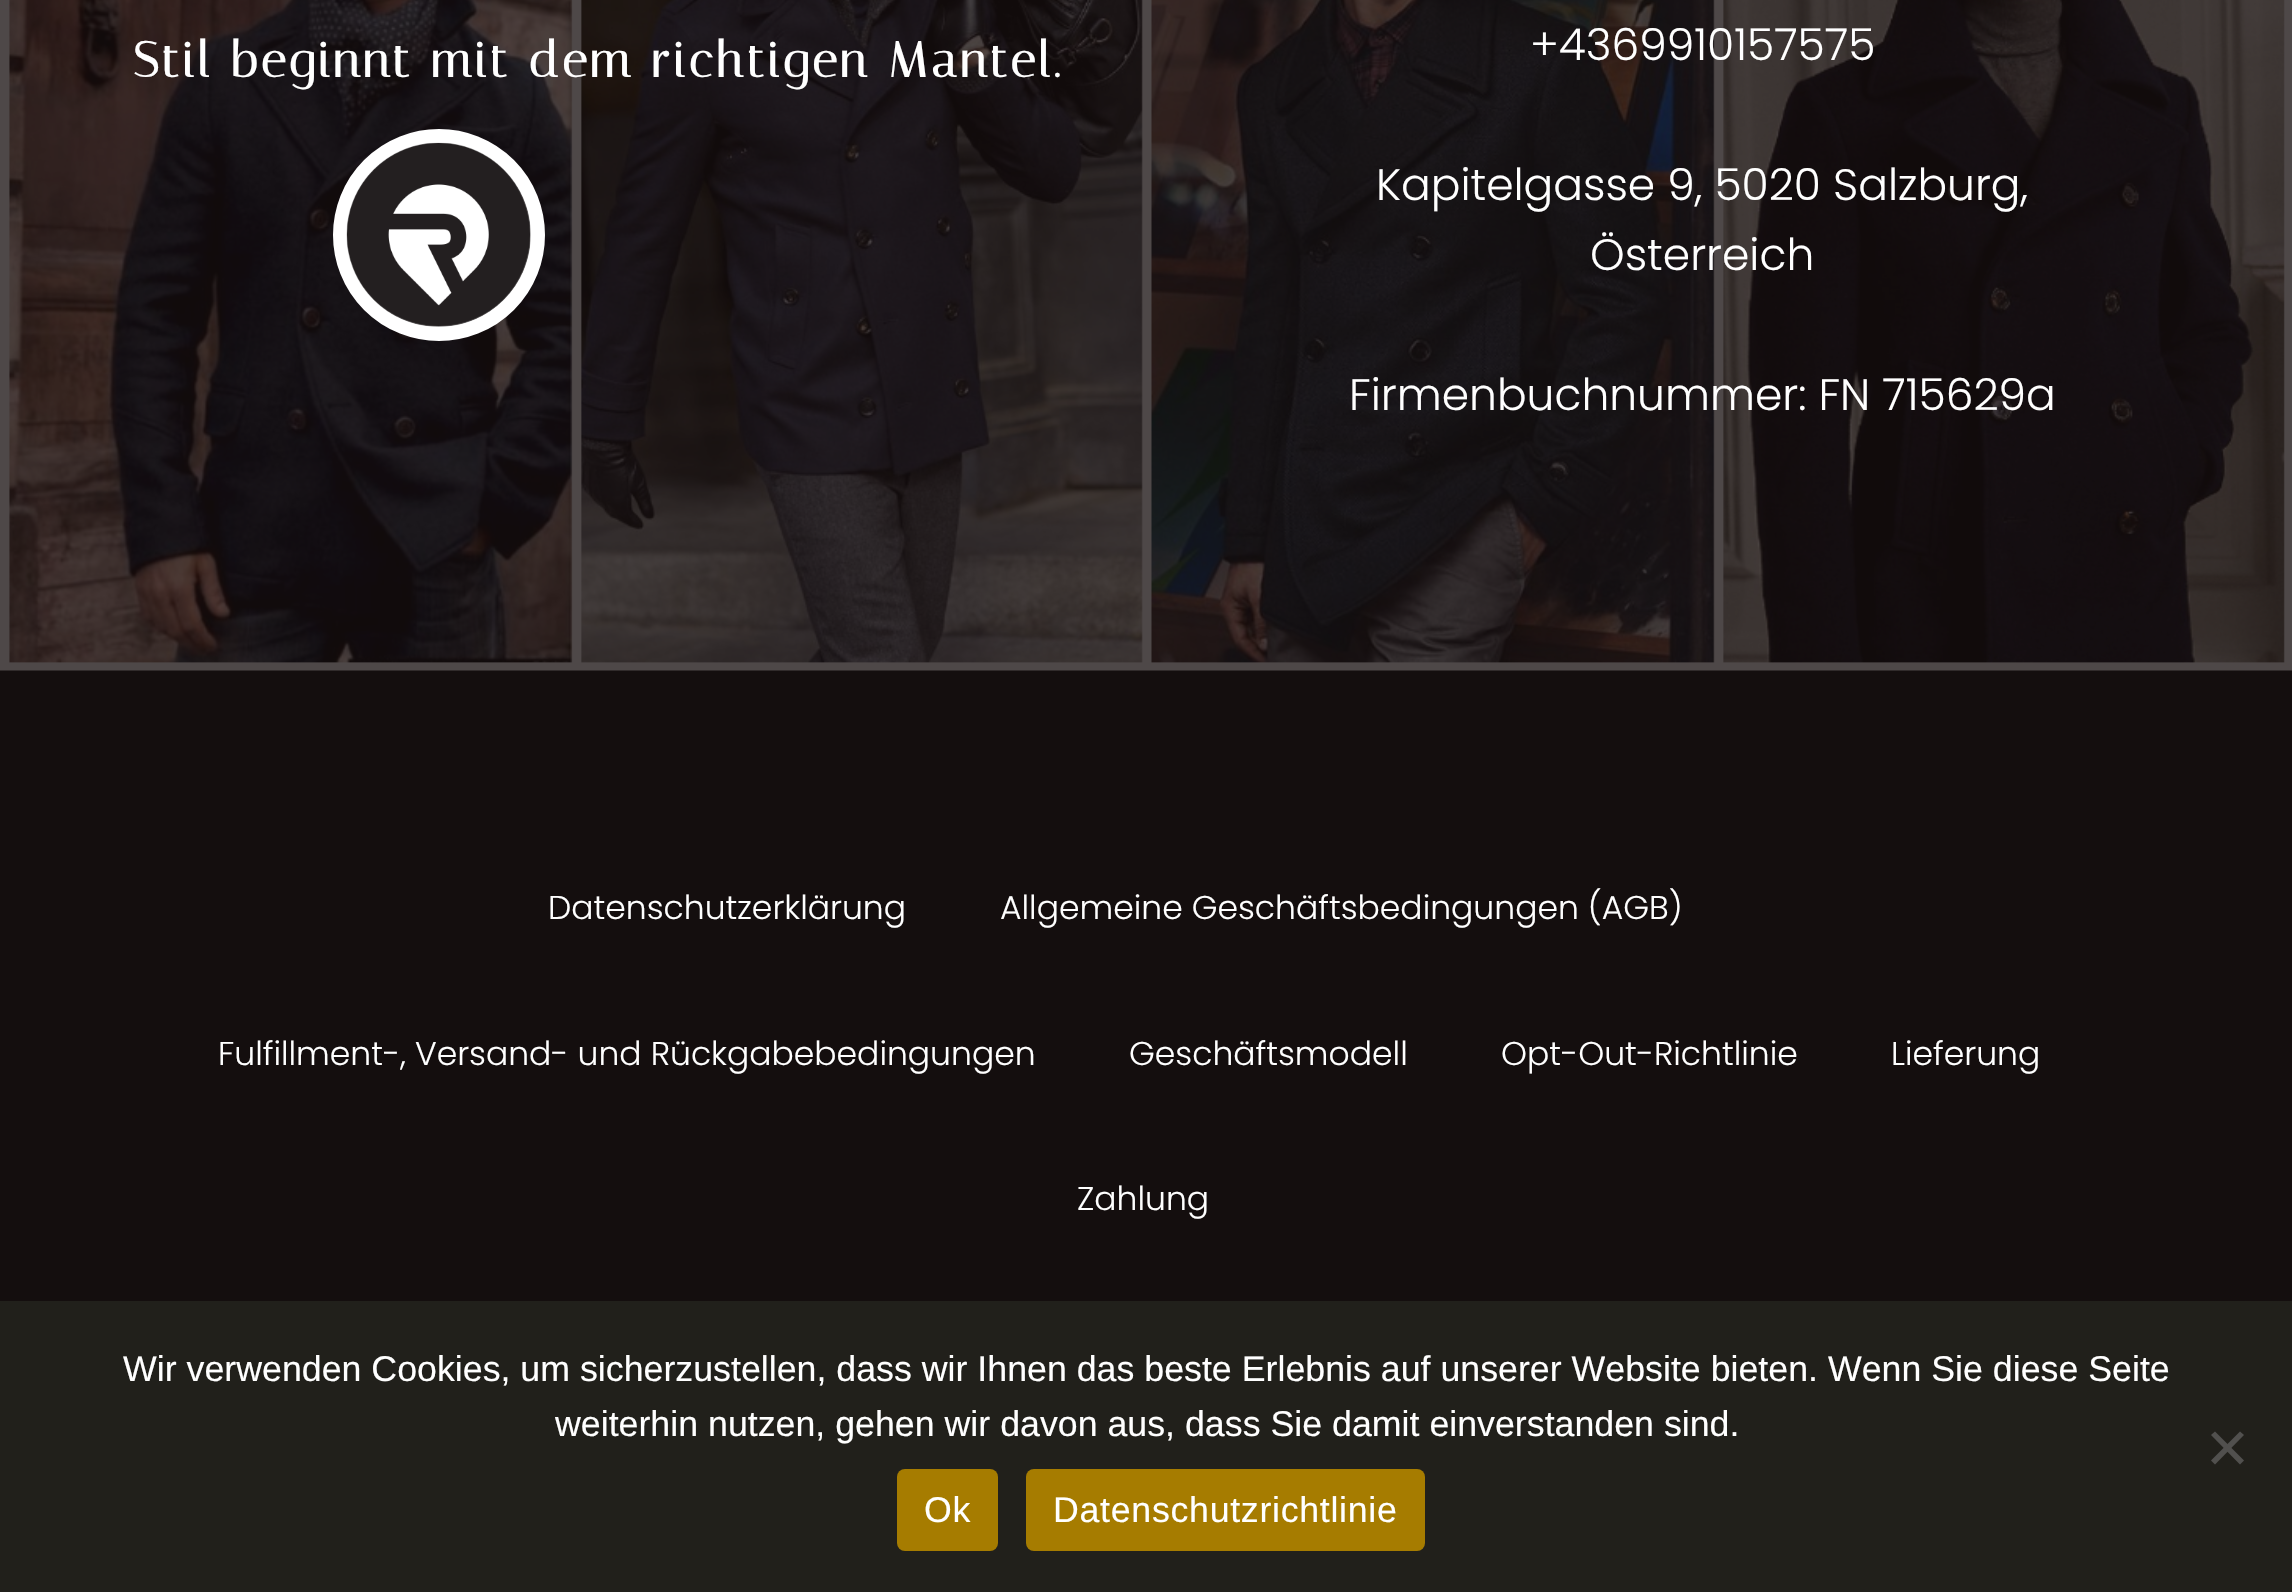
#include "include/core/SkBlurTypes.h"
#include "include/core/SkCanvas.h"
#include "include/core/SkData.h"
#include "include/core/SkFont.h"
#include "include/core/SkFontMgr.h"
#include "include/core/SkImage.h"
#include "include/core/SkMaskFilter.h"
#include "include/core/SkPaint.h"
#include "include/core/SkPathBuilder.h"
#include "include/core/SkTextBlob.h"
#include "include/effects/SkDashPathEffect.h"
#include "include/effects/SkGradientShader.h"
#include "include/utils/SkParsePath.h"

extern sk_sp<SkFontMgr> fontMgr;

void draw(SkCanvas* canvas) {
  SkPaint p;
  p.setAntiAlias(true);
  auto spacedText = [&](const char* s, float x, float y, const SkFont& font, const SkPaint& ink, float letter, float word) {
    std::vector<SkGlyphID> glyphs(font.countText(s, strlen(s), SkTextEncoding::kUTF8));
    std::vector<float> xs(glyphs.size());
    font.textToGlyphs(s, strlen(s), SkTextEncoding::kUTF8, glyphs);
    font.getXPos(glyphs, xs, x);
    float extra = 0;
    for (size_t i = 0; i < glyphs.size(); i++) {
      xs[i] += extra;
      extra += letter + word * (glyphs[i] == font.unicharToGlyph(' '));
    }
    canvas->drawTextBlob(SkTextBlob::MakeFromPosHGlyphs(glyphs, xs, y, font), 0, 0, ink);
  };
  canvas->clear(SkColorSetRGB(20, 14, 14));
  canvas->drawImageRect(SkImages::DeferredFromEncodedData(SkData::MakeFromFileName("images/1.png")), SkRect::MakeLTRB(0, 0, 2292, 671), SkSamplingOptions());
  p.setColor(SK_ColorWHITE);
  canvas->drawCircle(439, 235, 99, p);
  p.setStyle(SkPaint::kStroke_Style);
  p.setStrokeWidth(14);
  canvas->drawCircle(439, 235, 99, p);
  canvas->drawImageRect(SkImages::DeferredFromEncodedData(SkData::MakeFromFileName("images/2.png")), SkRect::MakeLTRB(346, 142, 531, 327), SkSamplingOptions());
  p.setStyle(SkPaint::kFill_Style);
  p.setColor(SkColorSetRGB(33, 32, 27));
  canvas->drawRect(SkRect::MakeLTRB(0, 1301, 2292, 1592), p);
  p.setColor(SkColorSetRGB(81, 80, 78));
  canvas->drawPath(SkPathBuilder().moveTo(2240, 1431.5f).lineTo(2244, 1435).lineTo(2215, 1464.5f).lineTo(2211, 1460.5f).close().detach(), p);
  canvas->drawPath(SkPathBuilder().moveTo(2211, 1435).lineTo(2215, 1431.5f).lineTo(2244, 1460.5f).lineTo(2240, 1464.5f).close().detach(), p);
  p.setColor(SkColorSetRGB(166, 124, 0));
  canvas->drawRoundRect(SkRect::MakeLTRB(897, 1469, 998, 1551), 8, 8, p);
  canvas->drawRoundRect(SkRect::MakeLTRB(1026, 1469, 1425, 1551), 8, 8, p);
  SkFont font1(fontMgr->matchFamilyStyle("Italiana", SkFontStyle::Bold()), 49.5f);
  font1.setSubpixel(true);
  p.setColor(SK_ColorWHITE);
  spacedText("Stil beginnt mit dem richtigen Mantel.", 133, 77, font1, p, 3.6f, 0);
  SkFont font2(fontMgr->matchFamilyStyle("Poppins", SkFontStyle(300, SkFontStyle::kNormal_Width, SkFontStyle::kUpright_Slant)), 44);
  font2.setSubpixel(true);
  canvas->drawString("+4369910157575", 1530, 60, font2, p);
  canvas->drawString("Kapitelgasse 9, 5020 Salzburg,", 1376, 200, font2, p);
  canvas->drawString("Österreich", 1590, 270, font2, p);
  canvas->drawString("Firmenbuchnummer: FN 715629a", 1349, 410, font2, p);
  SkFont font3(fontMgr->matchFamilyStyle("Poppins", SkFontStyle(300, SkFontStyle::kNormal_Width, SkFontStyle::kUpright_Slant)), 33);
  font3.setSubpixel(true);
  canvas->drawString("Datenschutzerklärung", 548, 919, font3, p);
  canvas->drawString("Allgemeine Geschäftsbedingungen (AGB)", 1000, 919, font3, p);
  canvas->drawString("Fulfillment-, Versand- und Rückgabebedingungen", 218, 1065, font3, p);
  canvas->drawString("Geschäftsmodell", 1129, 1065, font3, p);
  canvas->drawString("Opt-Out-Richtlinie", 1501, 1065, font3, p);
  canvas->drawString("Lieferung", 1891, 1065, font3, p);
  canvas->drawString("Zahlung", 1077, 1210, font3, p);
  SkFont font4(fontMgr->matchFamilyStyle("Liberation Sans", SkFontStyle::Normal()), 35.75f);
  font4.setSubpixel(true);
  canvas->drawString("Wir verwenden Cookies, um sicherzustellen, dass wir Ihnen das beste Erlebnis auf unserer Website bieten. Wenn Sie diese Seite", 123, 1381, font4, p);
  canvas->drawString("weiterhin nutzen, gehen wir davon aus, dass Sie damit einverstanden sind.", 555, 1436, font4, p);
  spacedText("Ok", 924, 1522, font4, p, 0.7f, 0);
  spacedText("Datenschutzrichtlinie", 1053, 1522, font4, p, 0.7f, 0);
}
